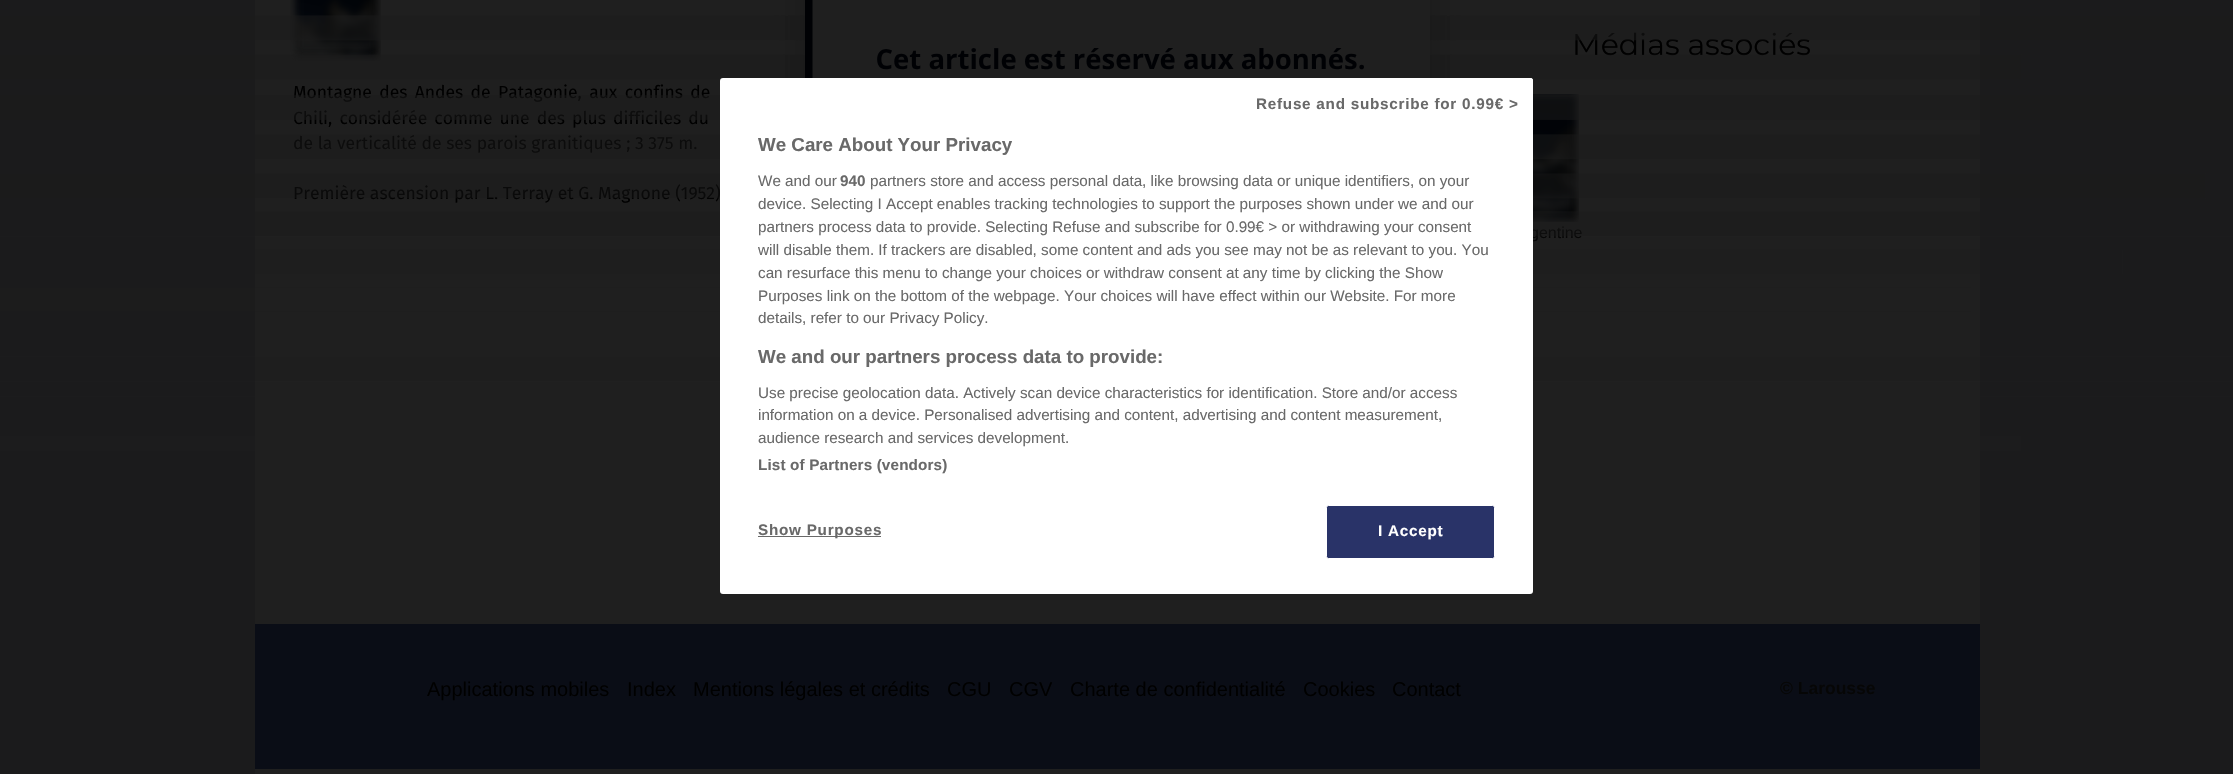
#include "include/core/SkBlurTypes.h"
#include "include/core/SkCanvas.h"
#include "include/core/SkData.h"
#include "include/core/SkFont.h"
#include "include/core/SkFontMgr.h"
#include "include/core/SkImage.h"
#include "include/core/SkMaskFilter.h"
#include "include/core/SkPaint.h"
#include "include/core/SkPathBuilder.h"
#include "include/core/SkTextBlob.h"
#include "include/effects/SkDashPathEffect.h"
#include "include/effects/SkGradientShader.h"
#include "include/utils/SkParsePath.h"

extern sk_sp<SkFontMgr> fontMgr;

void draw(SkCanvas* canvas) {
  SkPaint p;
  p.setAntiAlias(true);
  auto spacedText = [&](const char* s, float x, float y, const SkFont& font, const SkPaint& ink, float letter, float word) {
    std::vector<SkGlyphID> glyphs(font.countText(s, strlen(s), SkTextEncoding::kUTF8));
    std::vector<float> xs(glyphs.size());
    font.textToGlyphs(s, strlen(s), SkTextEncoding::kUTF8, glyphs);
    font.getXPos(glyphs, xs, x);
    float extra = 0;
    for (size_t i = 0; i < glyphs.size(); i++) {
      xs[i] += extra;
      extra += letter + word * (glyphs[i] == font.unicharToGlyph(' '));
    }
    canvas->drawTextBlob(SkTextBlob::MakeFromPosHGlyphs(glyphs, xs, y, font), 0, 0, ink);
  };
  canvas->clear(SkColorSetRGB(27, 27, 28));
  p.setColor(SkColorSetRGB(31, 31, 31));
  canvas->drawRect(SkRect::MakeLTRB(255, 0, 1980, 774), p);
  canvas->drawImageRect(SkImages::DeferredFromEncodedData(SkData::MakeFromFileName("images/2.png")), SkRect::MakeLTRB(290, 0, 381, 61), SkSamplingOptions());
  canvas->drawImageRect(SkImages::DeferredFromEncodedData(SkData::MakeFromFileName("images/3.png")), SkRect::MakeLTRB(1533, 94, 1579, 222), SkSamplingOptions());
  p.setColor(SkColorSetRGB(10, 13, 22));
  canvas->drawRect(SkRect::MakeLTRB(255, 624, 1980, 769), p);
  SkFont font1(fontMgr->matchFamilyStyle("Fira Sans", SkFontStyle::Normal()), 17.5f);
  font1.setSubpixel(true);
  p.setColor(SK_ColorBLACK);
  spacedText("Montagne des Andes de Patagonie, aux confins de", 293, 98, font1, p, 0, 2.75f);
  spacedText("Chili, considérée comme une des plus difficiles du", 293, 124, font1, p, 0, 2.5f);
  canvas->drawString("de la verticalité de ses parois granitiques ; 3 375 m.", 293, 149, font1, p);
  canvas->drawString("Première ascension par L. Terray et G. Magnone (1952)", 293, 199, font1, p);
  SkFont font2(fontMgr->matchFamilyStyle("Montserrat", SkFontStyle::Normal()), 30);
  font2.setSubpixel(true);
  canvas->drawString("Médias associés", 1572, 55, font2, p);
  SkFont font3(fontMgr->matchFamilyStyle("Liberation Sans", SkFontStyle::Normal()), 16);
  font3.setSubpixel(true);
  p.setColor(SkColorSetRGB(6, 6, 6));
  canvas->drawString("gentine", 1530, 238, font3, p);
  canvas->drawImageRect(SkImages::DeferredFromEncodedData(SkData::MakeFromFileName("images/1.png")), SkRect::MakeLTRB(0, 0, 2233, 451), SkSamplingOptions());
  SkFont font4(fontMgr->matchFamilyStyle("Liberation Sans", SkFontStyle::Normal()), 20);
  font4.setSubpixel(true);
  p.setColor(SK_ColorBLACK);
  canvas->drawString("Applications mobiles", 427, 696, font4, p);
  canvas->drawString("Index", 627, 696, font4, p);
  canvas->drawString("Mentions légales et crédits", 693, 696, font4, p);
  canvas->drawString("CGU", 947, 696, font4, p);
  canvas->drawString("CGV", 1009, 696, font4, p);
  canvas->drawString("Charte de confidentialité", 1070, 696, font4, p);
  canvas->drawString("Cookies", 1303, 696, font4, p);
  canvas->drawString("Contact", 1392, 696, font4, p);
  SkFont font5(fontMgr->matchFamilyStyle("Liberation Sans", SkFontStyle::Bold()), 17.5f);
  font5.setSubpixel(true);
  p.setColor(SkColorSetRGB(6, 6, 6));
  canvas->drawString("© Larousse", 1780, 694, font5, p);
  p.setColor(SK_ColorWHITE);
  canvas->drawRoundRect(SkRect::MakeLTRB(720, 78, 1533, 594), 3, 3, p);
  canvas->drawPath(SkPathBuilder().moveTo(1245.5f, 78).lineTo(1530, 78).cubicTo(1531.5f, 78, 1533, 79.5f, 1533, 81).lineTo(1533, 128.5f).cubicTo(1533, 130, 1532, 131, 1530.5f, 131).lineTo(1245.5f, 131).cubicTo(1244, 131, 1243, 130, 1243, 128.5f).lineTo(1243, 80.5f).cubicTo(1243, 79, 1244, 78, 1245.5f, 78).close().detach(), p);
  canvas->drawPath(SkPathBuilder(SkPathFillType::kEvenOdd).moveTo(1246, 78).cubicTo(1244, 78, 1243, 79, 1243, 80).lineTo(1243, 128).cubicTo(1243, 130, 1244, 131, 1246, 131).lineTo(1530, 131).cubicTo(1532, 131, 1533, 130, 1533, 128).lineTo(1533, 81).cubicTo(1533, 79, 1532, 78, 1530, 78).close().moveTo(1246, 79).cubicTo(1245, 79, 1244, 80, 1244, 80).lineTo(1244, 128).cubicTo(1244, 129, 1245, 130, 1246, 130).lineTo(1530, 130).cubicTo(1531, 130, 1532, 129, 1532, 128).lineTo(1532, 80).cubicTo(1532, 80, 1531, 79, 1530, 79).close().detach(), p);
  SkFont font6(fontMgr->matchFamilyStyle("Liberation Sans", SkFontStyle::Bold()), 15.25f);
  font6.setSubpixel(true);
  p.setColor(SkColorSetRGB(105, 105, 105));
  spacedText("Refuse and subscribe for 0.99€ >", 1256, 109, font6, p, 0.75f, 0);
  SkFont font7(fontMgr->matchFamilyStyle("Liberation Sans", SkFontStyle::Bold()), 18.75f);
  font7.setSubpixel(true);
  canvas->drawString("We Care About Your Privacy", 758, 151, font7, p);
  SkFont font8(fontMgr->matchFamilyStyle("Liberation Sans", SkFontStyle::Normal()), 15.25f);
  font8.setSubpixel(true);
  canvas->drawString("We and our", 758, 186, font8, p);
  canvas->drawString("940", 840, 186, font6, p);
  canvas->drawString("partners store and access personal data, like browsing data or unique identifiers, on your", 870, 186, font8, p);
  canvas->drawString("device. Selecting I Accept enables tracking technologies to support the purposes shown under we and our", 758, 209, font8, p);
  canvas->drawString("partners process data to provide. Selecting Refuse and subscribe for 0.99€ > or withdrawing your consent", 758, 232, font8, p);
  canvas->drawString("will disable them. If trackers are disabled, some content and ads you see may not be as relevant to you. You", 758, 255, font8, p);
  canvas->drawString("can resurface this menu to change your choices or withdraw consent at any time by clicking the Show", 758, 278, font8, p);
  canvas->drawString("Purposes link on the bottom of the webpage. Your choices will have effect within our Website. For more", 758, 301, font8, p);
  canvas->drawString("details, refer to our Privacy Policy.", 758, 323, font8, p);
  canvas->drawString("We and our partners process data to provide:", 758, 363, font7, p);
  canvas->drawString("Use precise geolocation data. Actively scan device characteristics for identification. Store and/or access", 758, 398, font8, p);
  canvas->drawString("information on a device. Personalised advertising and content, advertising and content measurement,", 758, 420, font8, p);
  canvas->drawString("audience research and services development.", 758, 443, font8, p);
  spacedText("List of Partners (vendors)", 758, 470, font6, p, 0.15f, 0);
  canvas->drawRect(SkRect::MakeLTRB(758, 536, 881, 537), p);
  spacedText("Show Purposes", 758, 535, font6, p, 0.75f, 0);
  p.setColor(SkColorSetRGB(41, 51, 104));
  canvas->drawRoundRect(SkRect::MakeLTRB(1326.5f, 505.5f, 1494.5f, 558.5f), 2, 2, p);
  p.setStyle(SkPaint::kStroke_Style);
  p.setStrokeWidth(1);
  p.setColor(SK_ColorWHITE);
  canvas->drawRoundRect(SkRect::MakeLTRB(1326.5f, 505.5f, 1494.5f, 558.5f), 2, 2, p);
  p.setStyle(SkPaint::kFill_Style);
  spacedText("I Accept", 1378, 536, font6, p, 0.75f, 0);
}
